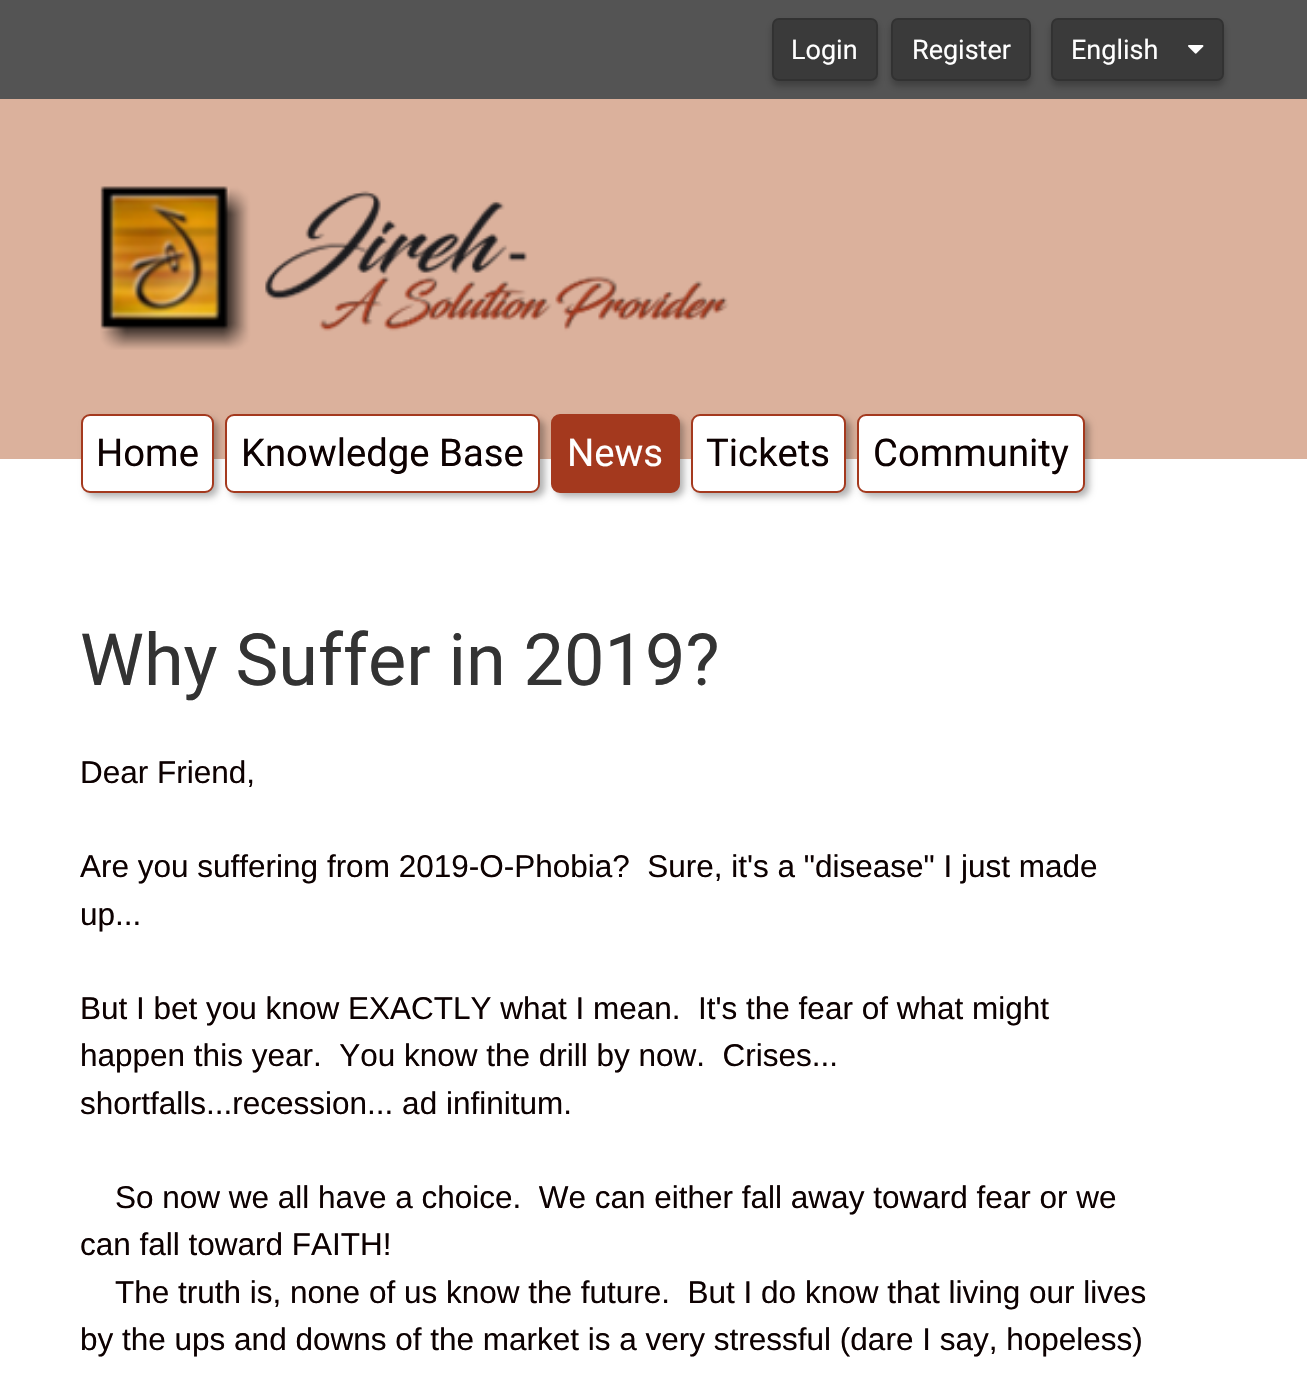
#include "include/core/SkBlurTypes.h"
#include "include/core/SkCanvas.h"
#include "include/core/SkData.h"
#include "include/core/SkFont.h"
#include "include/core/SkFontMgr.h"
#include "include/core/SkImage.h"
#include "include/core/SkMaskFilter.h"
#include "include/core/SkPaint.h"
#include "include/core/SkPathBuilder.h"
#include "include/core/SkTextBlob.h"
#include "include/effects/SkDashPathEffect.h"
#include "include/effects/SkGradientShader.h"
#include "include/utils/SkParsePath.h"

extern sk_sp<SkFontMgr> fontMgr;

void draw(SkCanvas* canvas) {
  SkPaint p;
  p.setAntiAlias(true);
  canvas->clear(SK_ColorWHITE);
  p.setColor(SkColorSetRGB(84, 84, 84));
  canvas->drawRect(SkRect::MakeLTRB(0, 0, 1307, 99), p);
  p.setColor(SkColorSetARGB(64, 0, 0, 0));
  p.setMaskFilter(SkMaskFilter::MakeBlur(kNormal_SkBlurStyle, 3.5f));
  canvas->drawRoundRect(SkRect::MakeLTRB(772, 23, 878, 86), 7, 7, p);
  p.setMaskFilter(nullptr);
  p.setColor(SkColorSetRGB(58, 58, 58));
  canvas->drawRoundRect(SkRect::MakeLTRB(773, 19, 877, 80), 6, 6, p);
  p.setStyle(SkPaint::kStroke_Style);
  p.setStrokeWidth(2);
  p.setColor(SkColorSetRGB(50, 50, 50));
  canvas->drawRoundRect(SkRect::MakeLTRB(773, 19, 877, 80), 6, 6, p);
  p.setStyle(SkPaint::kFill_Style);
  p.setColor(SkColorSetARGB(64, 0, 0, 0));
  p.setMaskFilter(SkMaskFilter::MakeBlur(kNormal_SkBlurStyle, 3.5f));
  canvas->drawRoundRect(SkRect::MakeLTRB(891, 23, 1031, 86), 7, 7, p);
  p.setMaskFilter(nullptr);
  p.setColor(SkColorSetRGB(58, 58, 58));
  canvas->drawRoundRect(SkRect::MakeLTRB(892, 19, 1030, 80), 6, 6, p);
  p.setStyle(SkPaint::kStroke_Style);
  p.setColor(SkColorSetRGB(50, 50, 50));
  canvas->drawRoundRect(SkRect::MakeLTRB(892, 19, 1030, 80), 6, 6, p);
  p.setStyle(SkPaint::kFill_Style);
  p.setColor(SkColorSetARGB(64, 0, 0, 0));
  p.setMaskFilter(SkMaskFilter::MakeBlur(kNormal_SkBlurStyle, 3.5f));
  canvas->drawRoundRect(SkRect::MakeLTRB(1051, 23, 1224, 86), 7, 7, p);
  p.setMaskFilter(nullptr);
  p.setColor(SkColorSetRGB(58, 58, 58));
  canvas->drawRoundRect(SkRect::MakeLTRB(1052, 19, 1223, 80), 6, 6, p);
  p.setStyle(SkPaint::kStroke_Style);
  p.setColor(SkColorSetRGB(50, 50, 50));
  canvas->drawRoundRect(SkRect::MakeLTRB(1052, 19, 1223, 80), 6, 6, p);
  canvas->drawImageRect(SkImages::DeferredFromEncodedData(SkData::MakeFromFileName("images/1.png")), SkRect::MakeLTRB(1188, 45, 1204, 54), SkSamplingOptions());
  p.setStyle(SkPaint::kFill_Style);
  p.setColor(SkColorSetRGB(219, 177, 156));
  canvas->drawRect(SkRect::MakeLTRB(0, 99, 1307, 459), p);
  canvas->drawImageRect(SkImages::DeferredFromEncodedData(SkData::MakeFromFileName("images/2.png")), SkRect::MakeLTRB(100, 186, 729, 350), SkSamplingOptions());
  p.setColor(SkColorSetARGB(77, 0, 0, 0));
  p.setMaskFilter(SkMaskFilter::MakeBlur(kNormal_SkBlurStyle, 3.5f));
  canvas->drawRoundRect(SkRect::MakeLTRB(86, 419, 218, 497), 9, 9, p);
  p.setMaskFilter(nullptr);
  p.setColor(SK_ColorWHITE);
  canvas->drawRoundRect(SkRect::MakeLTRB(82, 415, 213, 492), 8, 8, p);
  p.setStyle(SkPaint::kStroke_Style);
  p.setColor(SkColorSetRGB(164, 57, 30));
  canvas->drawRoundRect(SkRect::MakeLTRB(82, 415, 213, 492), 8, 8, p);
  p.setStyle(SkPaint::kFill_Style);
  p.setColor(SkColorSetARGB(77, 0, 0, 0));
  p.setMaskFilter(SkMaskFilter::MakeBlur(kNormal_SkBlurStyle, 3.5f));
  canvas->drawRoundRect(SkRect::MakeLTRB(230, 419, 545, 497), 9, 9, p);
  p.setMaskFilter(nullptr);
  p.setColor(SK_ColorWHITE);
  canvas->drawRoundRect(SkRect::MakeLTRB(226, 415, 539, 492), 8, 8, p);
  p.setStyle(SkPaint::kStroke_Style);
  p.setColor(SkColorSetRGB(164, 57, 30));
  canvas->drawRoundRect(SkRect::MakeLTRB(226, 415, 539, 492), 8, 8, p);
  p.setStyle(SkPaint::kFill_Style);
  p.setColor(SkColorSetARGB(77, 0, 0, 0));
  p.setMaskFilter(SkMaskFilter::MakeBlur(kNormal_SkBlurStyle, 3.5f));
  canvas->drawRoundRect(SkRect::MakeLTRB(556, 419, 684, 497), 9, 9, p);
  p.setMaskFilter(nullptr);
  p.setColor(SkColorSetRGB(164, 57, 30));
  canvas->drawRoundRect(SkRect::MakeLTRB(552, 415, 679, 492), 8, 8, p);
  p.setStyle(SkPaint::kStroke_Style);
  canvas->drawRoundRect(SkRect::MakeLTRB(552, 415, 679, 492), 8, 8, p);
  p.setStyle(SkPaint::kFill_Style);
  p.setColor(SkColorSetARGB(77, 0, 0, 0));
  p.setMaskFilter(SkMaskFilter::MakeBlur(kNormal_SkBlurStyle, 3.5f));
  canvas->drawRoundRect(SkRect::MakeLTRB(695, 419, 851, 497), 9, 9, p);
  p.setMaskFilter(nullptr);
  p.setColor(SK_ColorWHITE);
  canvas->drawRoundRect(SkRect::MakeLTRB(692, 415, 845, 492), 8, 8, p);
  p.setStyle(SkPaint::kStroke_Style);
  p.setColor(SkColorSetRGB(164, 57, 30));
  canvas->drawRoundRect(SkRect::MakeLTRB(692, 415, 845, 492), 8, 8, p);
  p.setStyle(SkPaint::kFill_Style);
  p.setColor(SkColorSetARGB(77, 0, 0, 0));
  p.setMaskFilter(SkMaskFilter::MakeBlur(kNormal_SkBlurStyle, 3.5f));
  canvas->drawRoundRect(SkRect::MakeLTRB(862, 419, 1089, 497), 9, 9, p);
  p.setMaskFilter(nullptr);
  p.setColor(SK_ColorWHITE);
  canvas->drawRoundRect(SkRect::MakeLTRB(858, 415, 1084, 492), 8, 8, p);
  p.setStyle(SkPaint::kStroke_Style);
  p.setColor(SkColorSetRGB(164, 57, 30));
  canvas->drawRoundRect(SkRect::MakeLTRB(858, 415, 1084, 492), 8, 8, p);
  SkFont font1(fontMgr->matchFamilyStyle("Roboto", SkFontStyle::Normal()), 27);
  font1.setSubpixel(true);
  p.setStyle(SkPaint::kFill_Style);
  p.setColor(SK_ColorWHITE);
  canvas->drawString("Login", 791, 59, font1, p);
  canvas->drawString("Register", 912, 59, font1, p);
  canvas->drawString("English", 1071, 59, font1, p);
  SkFont font2(fontMgr->matchFamilyStyle("Roboto", SkFontStyle::Normal()), 38.25f);
  font2.setSubpixel(true);
  p.setColor(SkColorSetRGB(13, 1, 1));
  canvas->drawString("Home", 96, 466, font2, p);
  canvas->drawString("Knowledge Base", 241, 466, font2, p);
  p.setColor(SK_ColorWHITE);
  canvas->drawString("News", 567, 466, font2, p);
  p.setColor(SkColorSetRGB(13, 1, 1));
  canvas->drawString("Tickets", 706, 466, font2, p);
  canvas->drawString("Community", 873, 466, font2, p);
  SkFont font3(fontMgr->matchFamilyStyle("Roboto", SkFontStyle::Normal()), 72);
  font3.setSubpixel(true);
  p.setColor(SkColorSetRGB(51, 51, 51));
  canvas->drawString("Why Suffer in 2019?", 80, 685, font3, p);
  SkFont font4(fontMgr->matchFamilyStyle("Liberation Sans", SkFontStyle::Normal()), 31.5f);
  font4.setSubpixel(true);
  p.setColor(SkColorSetRGB(13, 1, 1));
  canvas->drawString("Dear Friend,", 80, 783, font4, p);
  canvas->drawString("Are you suffering from 2019-O-Phobia?  Sure, it's a \"disease\" I just made", 80, 877, font4, p);
  canvas->drawString("up...", 80, 925, font4, p);
  canvas->drawString("But I bet you know EXACTLY what I mean.  It's the fear of what might", 80, 1019, font4, p);
  canvas->drawString("happen this year.  You know the drill by now.  Crises...", 80, 1066, font4, p);
  canvas->drawString("shortfalls...recession... ad infinitum.", 80, 1114, font4, p);
  canvas->drawString("So now we all have a choice.  We can either fall away toward fear or we", 115, 1208, font4, p);
  canvas->drawString("can fall toward FAITH!", 80, 1255, font4, p);
  canvas->drawString("The truth is, none of us know the future.  But I do know that living our lives", 115, 1303, font4, p);
  canvas->drawString("by the ups and downs of the market is a very stressful (dare I say, hopeless)", 80, 1350, font4, p);
}
